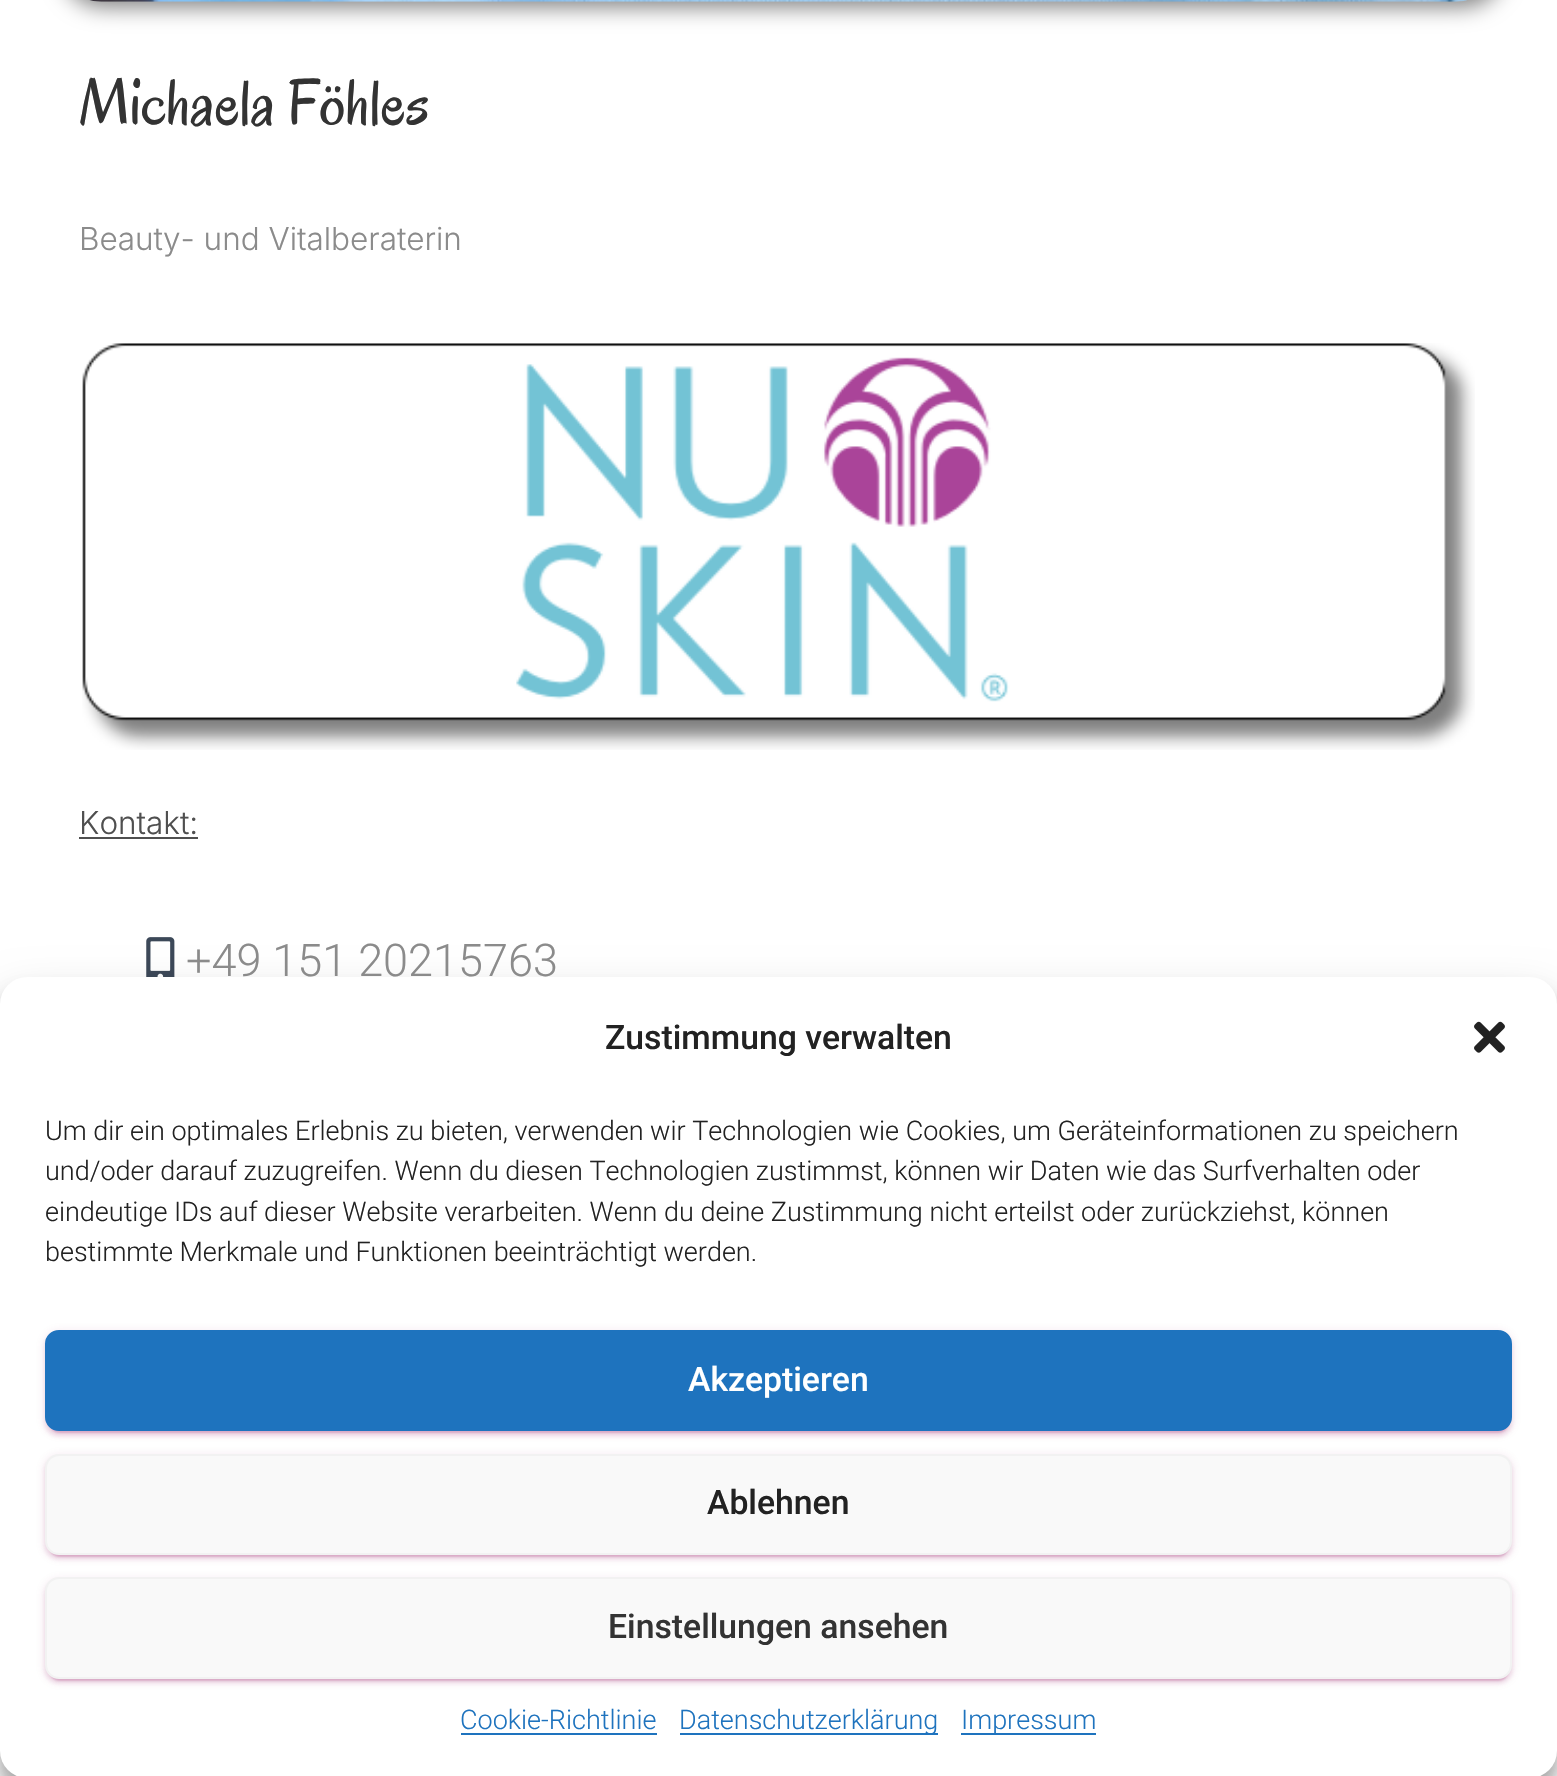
#include "include/core/SkBlurTypes.h"
#include "include/core/SkCanvas.h"
#include "include/core/SkData.h"
#include "include/core/SkFont.h"
#include "include/core/SkFontMgr.h"
#include "include/core/SkImage.h"
#include "include/core/SkMaskFilter.h"
#include "include/core/SkPaint.h"
#include "include/core/SkPathBuilder.h"
#include "include/core/SkTextBlob.h"
#include "include/effects/SkDashPathEffect.h"
#include "include/effects/SkGradientShader.h"
#include "include/utils/SkParsePath.h"

extern sk_sp<SkFontMgr> fontMgr;

void draw(SkCanvas* canvas) {
  SkPaint p;
  p.setAntiAlias(true);
  canvas->clear(SK_ColorWHITE);
  p.setColor(SkColorSetARGB(128, 0, 0, 0));
  p.setMaskFilter(SkMaskFilter::MakeBlur(kNormal_SkBlurStyle, 11));
  canvas->drawRoundRect(SkRect::MakeLTRB(61, -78, 1505, 7), 45, 45, p);
  p.setMaskFilter(nullptr);
  canvas->drawImageRect(SkImages::DeferredFromEncodedData(SkData::MakeFromFileName("images/1.png")), SkRect::MakeLTRB(89, 0, 1467, 2), SkSamplingOptions());
  canvas->drawImageRect(SkImages::DeferredFromEncodedData(SkData::MakeFromFileName("images/2.png")), SkRect::MakeLTRB(82, 343, 1475, 750), SkSamplingOptions());
  p.setColor(SkColorSetRGB(79, 79, 79));
  canvas->drawRect(SkRect::MakeLTRB(79, 837, 198, 839), p);
  canvas->drawImageRect(SkImages::DeferredFromEncodedData(SkData::MakeFromFileName("images/3.png")), SkRect::MakeLTRB(146, 937, 175, 977), SkSamplingOptions());
  p.setColor(SkColorSetARGB(59, 0, 0, 0));
  p.setMaskFilter(SkMaskFilter::MakeBlur(kNormal_SkBlurStyle, 7));
  canvas->drawRoundRect(SkRect::MakeLTRB(0, 990, 1557, 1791), 27, 27, p);
  p.setMaskFilter(nullptr);
  p.setColor(SkColorSetARGB(48, 0, 0, 0));
  p.setMaskFilter(SkMaskFilter::MakeBlur(kNormal_SkBlurStyle, 22.5f));
  canvas->drawRoundRect(SkRect::MakeLTRB(0, 999, 1557, 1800), 27, 27, p);
  p.setMaskFilter(nullptr);
  p.setColor(SK_ColorWHITE);
  canvas->drawRoundRect(SkRect::MakeLTRB(0, 977, 1557, 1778), 27, 27, p);
  canvas->drawImageRect(SkImages::DeferredFromEncodedData(SkData::MakeFromFileName("images/4.png")), SkRect::MakeLTRB(1474, 1021, 1505, 1053), SkSamplingOptions());
  p.setColor(SkColorSetARGB(31, 151, 24, 101));
  p.setMaskFilter(SkMaskFilter::MakeBlur(kNormal_SkBlurStyle, 5.5f));
  canvas->drawRoundRect(SkRect::MakeLTRB(45, 1332, 1512, 1433), 14, 14, p);
  p.setMaskFilter(nullptr);
  p.setColor(SkColorSetARGB(51, 151, 24, 101));
  p.setMaskFilter(SkMaskFilter::MakeBlur(kNormal_SkBlurStyle, 1));
  canvas->drawRoundRect(SkRect::MakeLTRB(50, 1341, 1508, 1433), 9, 9, p);
  p.setMaskFilter(nullptr);
  p.setColor(SkColorSetARGB(36, 151, 24, 101));
  p.setMaskFilter(SkMaskFilter::MakeBlur(kNormal_SkBlurStyle, 2));
  canvas->drawRoundRect(SkRect::MakeLTRB(45, 1334, 1512, 1436), 14, 14, p);
  p.setMaskFilter(nullptr);
  p.setColor(SkColorSetRGB(30, 115, 190));
  canvas->drawRoundRect(SkRect::MakeLTRB(46, 1331, 1511, 1430), 13, 13, p);
  p.setStyle(SkPaint::kStroke_Style);
  p.setStrokeWidth(2);
  canvas->drawRoundRect(SkRect::MakeLTRB(46, 1331, 1511, 1430), 13, 13, p);
  p.setStyle(SkPaint::kFill_Style);
  p.setColor(SkColorSetARGB(31, 151, 24, 101));
  p.setMaskFilter(SkMaskFilter::MakeBlur(kNormal_SkBlurStyle, 5.5f));
  canvas->drawRoundRect(SkRect::MakeLTRB(45, 1456, 1512, 1557), 14, 14, p);
  p.setMaskFilter(nullptr);
  p.setColor(SkColorSetARGB(51, 151, 24, 101));
  p.setMaskFilter(SkMaskFilter::MakeBlur(kNormal_SkBlurStyle, 1));
  canvas->drawRoundRect(SkRect::MakeLTRB(50, 1465, 1508, 1557), 9, 9, p);
  p.setMaskFilter(nullptr);
  p.setColor(SkColorSetARGB(36, 151, 24, 101));
  p.setMaskFilter(SkMaskFilter::MakeBlur(kNormal_SkBlurStyle, 2));
  canvas->drawRoundRect(SkRect::MakeLTRB(45, 1458, 1512, 1559), 14, 14, p);
  p.setMaskFilter(nullptr);
  p.setColor(SkColorSetRGB(249, 249, 249));
  canvas->drawRoundRect(SkRect::MakeLTRB(46, 1455, 1511, 1554), 13, 13, p);
  p.setStyle(SkPaint::kStroke_Style);
  p.setColor(SkColorSetRGB(242, 242, 242));
  canvas->drawRoundRect(SkRect::MakeLTRB(46, 1455, 1511, 1554), 13, 13, p);
  p.setStyle(SkPaint::kFill_Style);
  p.setColor(SkColorSetARGB(31, 151, 24, 101));
  p.setMaskFilter(SkMaskFilter::MakeBlur(kNormal_SkBlurStyle, 5.5f));
  canvas->drawRoundRect(SkRect::MakeLTRB(45, 1580, 1512, 1681), 14, 14, p);
  p.setMaskFilter(nullptr);
  p.setColor(SkColorSetARGB(51, 151, 24, 101));
  p.setMaskFilter(SkMaskFilter::MakeBlur(kNormal_SkBlurStyle, 1));
  canvas->drawRoundRect(SkRect::MakeLTRB(50, 1589, 1508, 1681), 9, 9, p);
  p.setMaskFilter(nullptr);
  p.setColor(SkColorSetARGB(36, 151, 24, 101));
  p.setMaskFilter(SkMaskFilter::MakeBlur(kNormal_SkBlurStyle, 2));
  canvas->drawRoundRect(SkRect::MakeLTRB(45, 1582, 1512, 1683), 14, 14, p);
  p.setMaskFilter(nullptr);
  p.setColor(SkColorSetRGB(249, 249, 249));
  canvas->drawRoundRect(SkRect::MakeLTRB(46, 1578, 1511, 1678), 13, 13, p);
  p.setStyle(SkPaint::kStroke_Style);
  p.setColor(SkColorSetRGB(242, 242, 242));
  canvas->drawRoundRect(SkRect::MakeLTRB(46, 1578, 1511, 1678), 13, 13, p);
  p.setStyle(SkPaint::kFill_Style);
  p.setColor(SkColorSetRGB(30, 115, 190));
  canvas->drawRect(SkRect::MakeLTRB(461, 1733, 657, 1735), p);
  canvas->drawRect(SkRect::MakeLTRB(680, 1733, 938, 1735), p);
  canvas->drawRect(SkRect::MakeLTRB(961, 1733, 1096, 1735), p);
  SkFont font1(fontMgr->matchFamilyStyle("Oregano", SkFontStyle::Normal()), 65.25f);
  font1.setSubpixel(true);
  p.setColor(SkColorSetRGB(51, 51, 51));
  canvas->drawString("Michaela Föhles", 79, 124, font1, p);
  SkFont font2(fontMgr->matchFamilyStyle("Inter", SkFontStyle(300, SkFontStyle::kNormal_Width, SkFontStyle::kUpright_Slant)), 31.5f);
  font2.setSubpixel(true);
  p.setColor(SkColorSetRGB(139, 139, 139));
  canvas->drawString("Beauty- und Vitalberaterin", 79, 250, font2, p);
  p.setColor(SkColorSetRGB(79, 79, 79));
  canvas->drawString("Kontakt:", 79, 834, font2, p);
  SkFont font3(fontMgr->matchFamilyStyle("Roboto", SkFontStyle(300, SkFontStyle::kNormal_Width, SkFontStyle::kUpright_Slant)), 45);
  font3.setSubpixel(true);
  p.setColor(SkColorSetRGB(139, 139, 139));
  canvas->drawString("+49 151 20215763", 186, 976, font3, p);
  SkFont font4(fontMgr->matchFamilyStyle("Roboto", SkFontStyle(500, SkFontStyle::kNormal_Width, SkFontStyle::kUpright_Slant)), 33.75f);
  font4.setSubpixel(true);
  p.setColor(SkColorSetRGB(34, 34, 34));
  canvas->drawString("Zustimmung verwalten", 605, 1049, font4, p);
  SkFont font5(fontMgr->matchFamilyStyle("Roboto", SkFontStyle(300, SkFontStyle::kNormal_Width, SkFontStyle::kUpright_Slant)), 27);
  font5.setSubpixel(true);
  canvas->drawString("Um dir ein optimales Erlebnis zu bieten, verwenden wir Technologien wie Cookies, um Geräteinformationen zu speichern", 45, 1140, font5, p);
  canvas->drawString("und/oder darauf zuzugreifen. Wenn du diesen Technologien zustimmst, können wir Daten wie das Surfverhalten oder", 45, 1180, font5, p);
  canvas->drawString("eindeutige IDs auf dieser Website verarbeiten. Wenn du deine Zustimmung nicht erteilst oder zurückziehst, können", 45, 1221, font5, p);
  canvas->drawString("bestimmte Merkmale und Funktionen beeinträchtigt werden.", 45, 1261, font5, p);
  p.setColor(SK_ColorWHITE);
  canvas->drawString("Akzeptieren", 688, 1391, font4, p);
  p.setColor(SkColorSetRGB(34, 34, 34));
  canvas->drawString("Ablehnen", 707, 1514, font4, p);
  p.setColor(SkColorSetRGB(51, 51, 51));
  canvas->drawString("Einstellungen ansehen", 608, 1638, font4, p);
  p.setColor(SkColorSetRGB(30, 115, 190));
  canvas->drawString("Cookie-Richtlinie", 460, 1729, font5, p);
  canvas->drawString("Datenschutzerklärung", 679, 1729, font5, p);
  canvas->drawString("Impressum", 961, 1729, font5, p);
}
